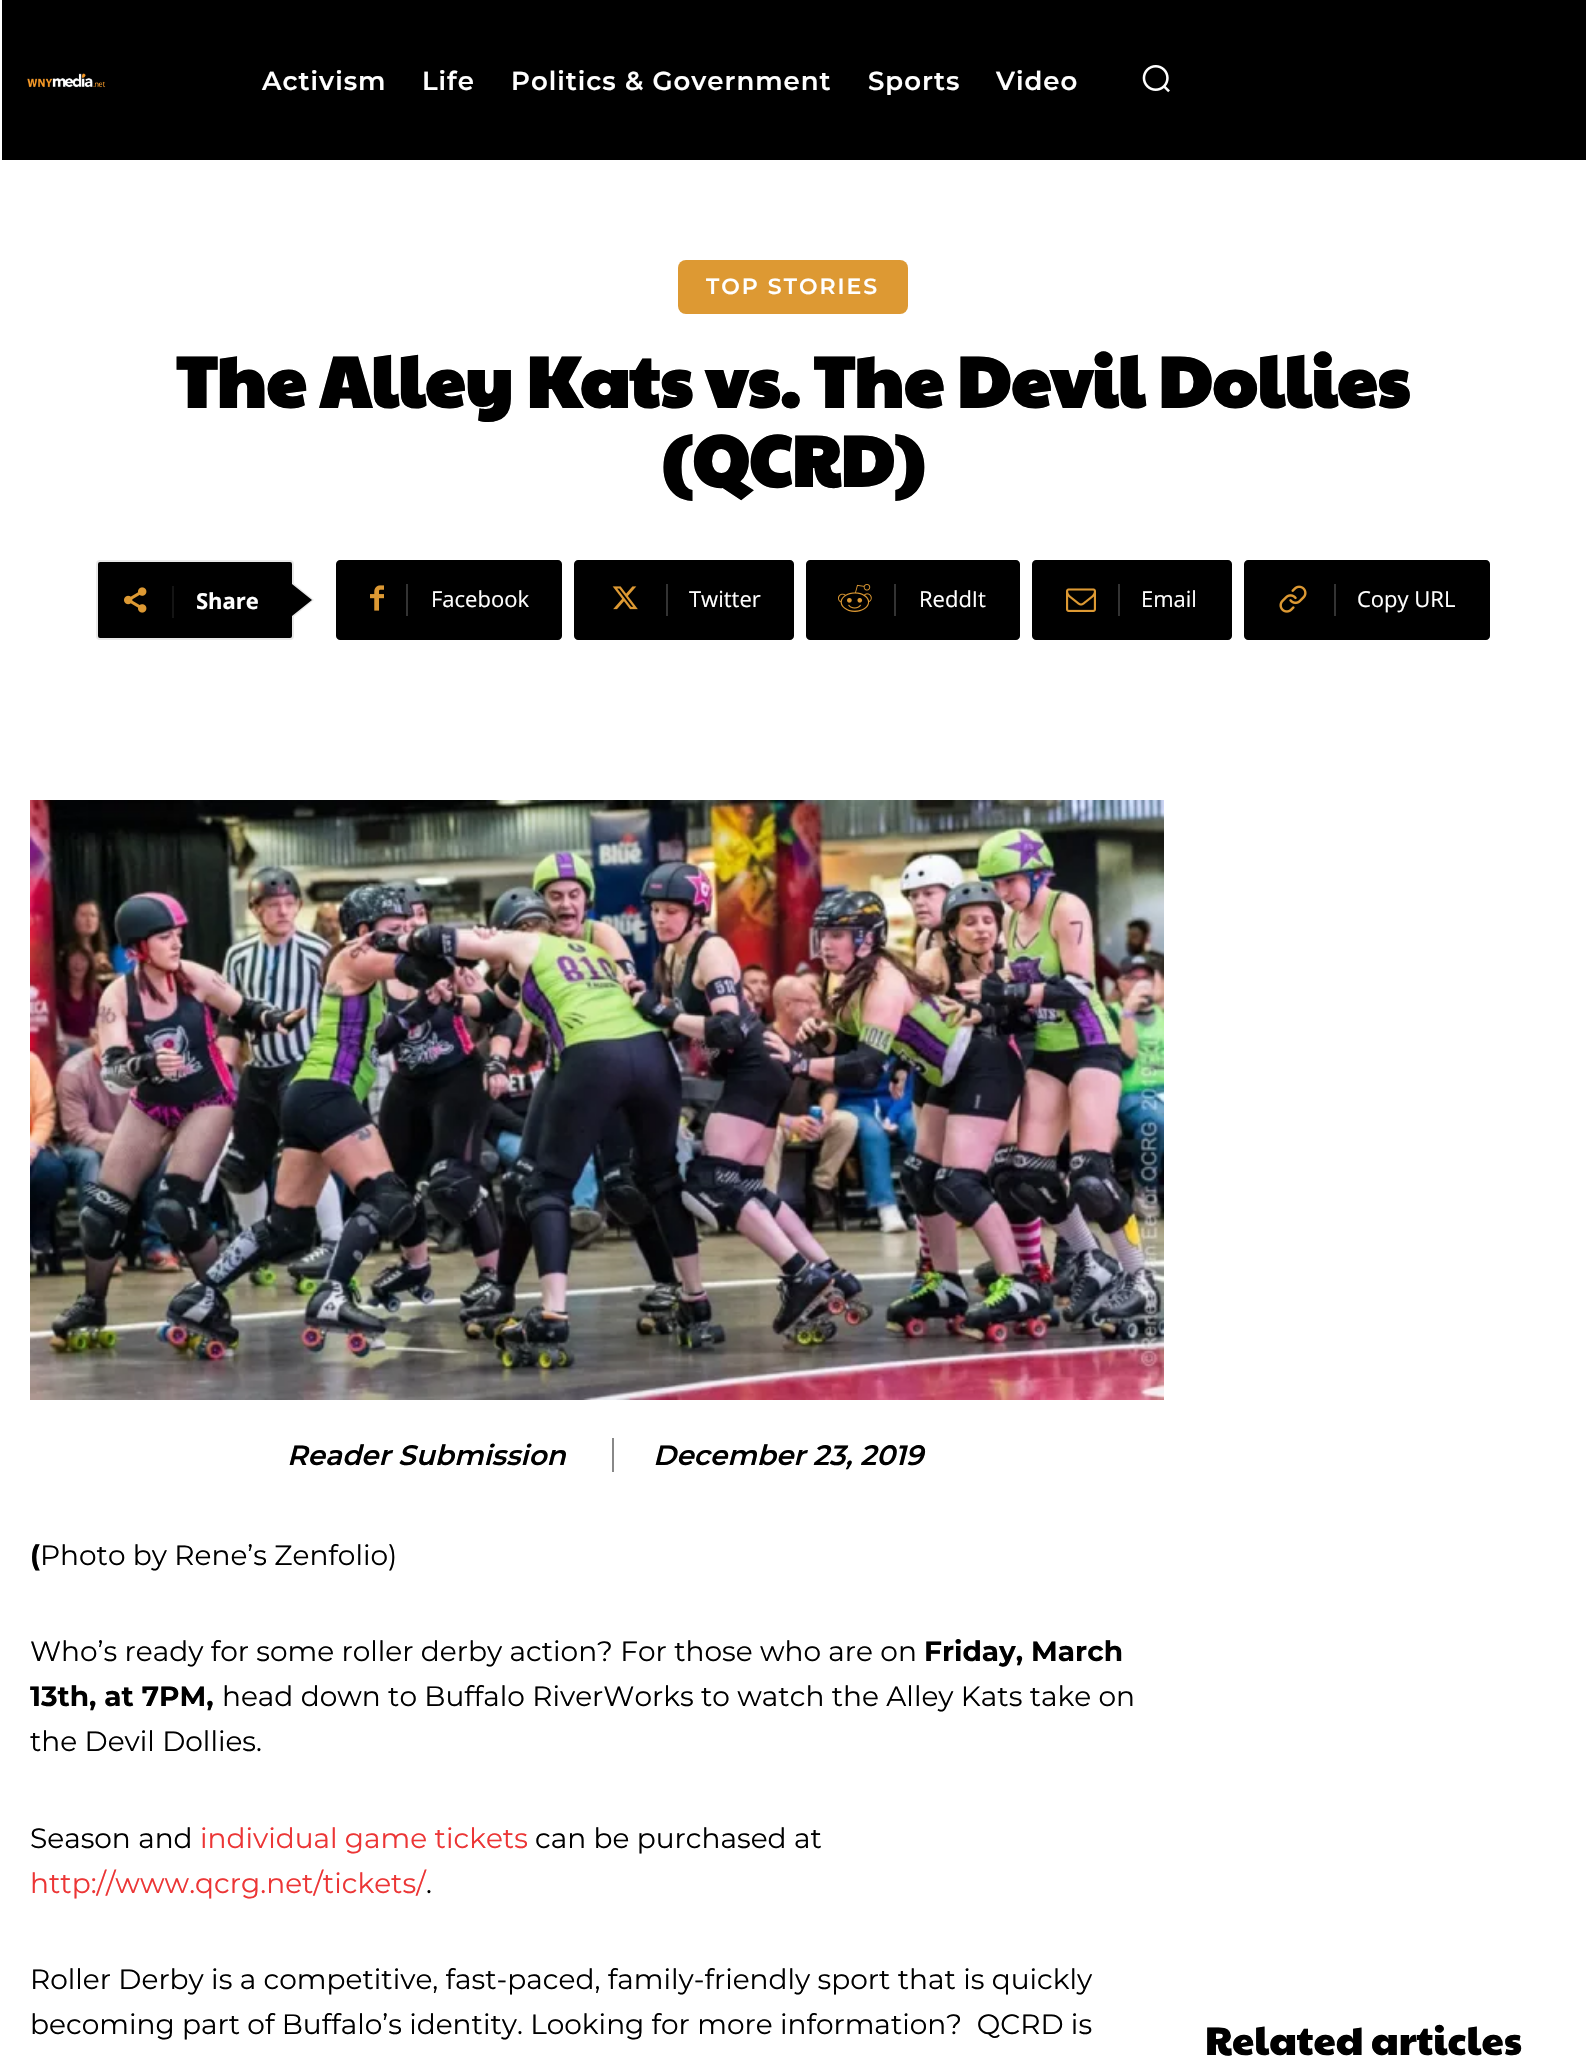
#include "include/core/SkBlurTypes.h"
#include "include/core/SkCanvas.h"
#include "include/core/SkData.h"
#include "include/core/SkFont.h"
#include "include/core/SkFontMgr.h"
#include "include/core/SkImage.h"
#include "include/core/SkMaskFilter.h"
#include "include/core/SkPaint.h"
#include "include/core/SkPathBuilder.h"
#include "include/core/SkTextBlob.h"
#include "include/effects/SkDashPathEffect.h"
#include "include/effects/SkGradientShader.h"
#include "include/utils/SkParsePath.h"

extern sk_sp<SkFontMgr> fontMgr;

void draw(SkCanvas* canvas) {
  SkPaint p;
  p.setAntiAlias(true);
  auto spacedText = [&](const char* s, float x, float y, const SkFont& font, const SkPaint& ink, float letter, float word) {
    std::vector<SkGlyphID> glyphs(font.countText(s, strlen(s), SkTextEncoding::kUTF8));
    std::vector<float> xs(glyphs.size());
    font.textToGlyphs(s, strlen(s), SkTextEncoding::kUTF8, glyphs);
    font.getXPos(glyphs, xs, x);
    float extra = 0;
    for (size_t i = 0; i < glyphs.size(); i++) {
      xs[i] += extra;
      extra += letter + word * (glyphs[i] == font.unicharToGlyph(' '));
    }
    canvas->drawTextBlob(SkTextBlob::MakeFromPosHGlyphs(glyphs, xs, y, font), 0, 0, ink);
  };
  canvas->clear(SK_ColorWHITE);
  p.setColor(SK_ColorBLACK);
  canvas->drawRect(SkRect::MakeLTRB(2, 0, 1586, 160), p);
  canvas->drawImageRect(SkImages::DeferredFromEncodedData(SkData::MakeFromFileName("images/1.png")), SkRect::MakeLTRB(27, 73, 106, 88), SkSamplingOptions());
  canvas->drawImageRect(SkImages::DeferredFromEncodedData(SkData::MakeFromFileName("images/2.png")), SkRect::MakeLTRB(1142, 65, 1170, 93), SkSamplingOptions());
  p.setColor(SkColorSetRGB(221, 153, 51));
  canvas->drawRoundRect(SkRect::MakeLTRB(678, 260, 908, 314), 8, 8, p);
  p.setColor(SK_ColorBLACK);
  canvas->drawRoundRect(SkRect::MakeLTRB(97, 561, 293, 639), 3, 3, p);
  p.setStyle(SkPaint::kStroke_Style);
  p.setStrokeWidth(2);
  p.setColor(SkColorSetRGB(233, 233, 233));
  canvas->drawRoundRect(SkRect::MakeLTRB(97, 561, 293, 639), 3, 3, p);
  p.setStyle(SkPaint::kFill_Style);
  canvas->drawPath(SkPathBuilder().moveTo(292, 618).lineTo(292, 582).lineTo(314, 600).close().detach(), p);
  canvas->drawImageRect(SkImages::DeferredFromEncodedData(SkData::MakeFromFileName("images/3.png")), SkRect::MakeLTRB(124, 587, 147, 613), SkSamplingOptions());
  p.setColor(SkColorSetRGB(20, 20, 20));
  canvas->drawRect(SkRect::MakeLTRB(172, 586, 174, 618), p);
  p.setColor(SK_ColorBLACK);
  canvas->drawPath(SkPathBuilder().moveTo(292, 616).lineTo(292, 584).lineTo(312, 600).close().detach(), p);
  canvas->drawPath(SkPathBuilder().moveTo(406, 560).lineTo(558, 560).cubicTo(560, 560, 562, 562, 562, 564).lineTo(562, 636).cubicTo(562, 638, 560, 640, 558, 640).lineTo(406, 640).close().detach(), p);
  canvas->drawPath(SkPathBuilder().moveTo(340, 560).lineTo(418, 560).lineTo(418, 640).lineTo(340, 640).cubicTo(338, 640, 336, 638, 336, 636).lineTo(336, 564).cubicTo(336, 562, 338, 560, 340, 560).close().detach(), p);
  canvas->drawImageRect(SkImages::DeferredFromEncodedData(SkData::MakeFromFileName("images/4.png")), SkRect::MakeLTRB(370, 585, 384, 611), SkSamplingOptions());
  p.setColor(SkColorSetRGB(51, 51, 51));
  canvas->drawRect(SkRect::MakeLTRB(406, 584, 408, 616), p);
  p.setColor(SK_ColorBLACK);
  canvas->drawPath(SkPathBuilder().moveTo(666, 560).lineTo(790, 560).cubicTo(792, 560, 794, 562, 794, 564).lineTo(794, 636).cubicTo(794, 638, 792, 640, 790, 640).lineTo(666, 640).close().detach(), p);
  canvas->drawPath(SkPathBuilder().moveTo(578, 560).lineTo(678, 560).lineTo(678, 640).lineTo(578, 640).cubicTo(576, 640, 574, 638, 574, 636).lineTo(574, 564).cubicTo(574, 562, 576, 560, 578, 560).close().detach(), p);
  canvas->drawImageRect(SkImages::DeferredFromEncodedData(SkData::MakeFromFileName("images/5.png")), SkRect::MakeLTRB(612, 586, 638, 610), SkSamplingOptions());
  p.setColor(SkColorSetRGB(51, 51, 51));
  canvas->drawRect(SkRect::MakeLTRB(666, 584, 668, 616), p);
  p.setColor(SK_ColorBLACK);
  canvas->drawPath(SkPathBuilder().moveTo(894, 560).lineTo(1016, 560).cubicTo(1018, 560, 1020, 562, 1020, 564).lineTo(1020, 636).cubicTo(1020, 638, 1018, 640, 1016, 640).lineTo(894, 640).close().detach(), p);
  canvas->drawPath(SkPathBuilder().moveTo(810, 560).lineTo(906, 560).lineTo(906, 640).lineTo(810, 640).cubicTo(808, 640, 806, 638, 806, 636).lineTo(806, 564).cubicTo(806, 562, 808, 560, 810, 560).close().detach(), p);
  canvas->drawImageRect(SkImages::DeferredFromEncodedData(SkData::MakeFromFileName("images/6.png")), SkRect::MakeLTRB(838, 584, 872, 612), SkSamplingOptions());
  p.setColor(SkColorSetRGB(51, 51, 51));
  canvas->drawRect(SkRect::MakeLTRB(894, 584, 896, 616), p);
  p.setColor(SK_ColorBLACK);
  canvas->drawPath(SkPathBuilder().moveTo(1118, 560).lineTo(1228, 560).cubicTo(1230, 560, 1232, 562, 1232, 564).lineTo(1232, 636).cubicTo(1232, 638, 1230, 640, 1228, 640).lineTo(1118, 640).close().detach(), p);
  canvas->drawPath(SkPathBuilder().moveTo(1036, 560).lineTo(1130, 560).lineTo(1130, 640).lineTo(1036, 640).cubicTo(1034, 640, 1032, 638, 1032, 636).lineTo(1032, 564).cubicTo(1032, 562, 1034, 560, 1036, 560).close().detach(), p);
  canvas->drawImageRect(SkImages::DeferredFromEncodedData(SkData::MakeFromFileName("images/7.png")), SkRect::MakeLTRB(1066, 588, 1096, 612), SkSamplingOptions());
  p.setColor(SkColorSetRGB(51, 51, 51));
  canvas->drawRect(SkRect::MakeLTRB(1118, 584, 1120, 616), p);
  p.setColor(SK_ColorBLACK);
  canvas->drawPath(SkPathBuilder().moveTo(1334, 560).lineTo(1486, 560).cubicTo(1488, 560, 1490, 562, 1490, 564).lineTo(1490, 636).cubicTo(1490, 638, 1488, 640, 1486, 640).lineTo(1334, 640).close().detach(), p);
  canvas->drawPath(SkPathBuilder().moveTo(1248, 560).lineTo(1346, 560).lineTo(1346, 640).lineTo(1248, 640).cubicTo(1246, 640, 1244, 638, 1244, 636).lineTo(1244, 564).cubicTo(1244, 562, 1246, 560, 1248, 560).close().detach(), p);
  canvas->drawImageRect(SkImages::DeferredFromEncodedData(SkData::MakeFromFileName("images/8.png")), SkRect::MakeLTRB(1279, 585, 1307, 613), SkSamplingOptions());
  p.setColor(SkColorSetRGB(51, 51, 51));
  canvas->drawRect(SkRect::MakeLTRB(1334, 584, 1336, 616), p);
  canvas->drawImageRect(SkImages::DeferredFromEncodedData(SkData::MakeFromFileName("images/9.png")), SkRect::MakeLTRB(30, 800, 1164, 1400), SkSamplingOptions());
  p.setColor(SkColorSetRGB(136, 136, 136));
  canvas->drawRect(SkRect::MakeLTRB(612, 1438, 614, 1472), p);
  SkFont font1(fontMgr->matchFamilyStyle("Montserrat", SkFontStyle(600, SkFontStyle::kNormal_Width, SkFontStyle::kUpright_Slant)), 26);
  font1.setSubpixel(true);
  p.setColor(SK_ColorWHITE);
  spacedText("Activism", 262, 90, font1, p, 1, 0);
  spacedText("Life", 422, 90, font1, p, 1, 0);
  spacedText("Politics & Government", 511, 90, font1, p, 1, 0);
  spacedText("Sports", 868, 90, font1, p, 1, 0);
  spacedText("Video", 996, 90, font1, p, 1, 0);
  SkFont font2(fontMgr->matchFamilyStyle("Montserrat", SkFontStyle(600, SkFontStyle::kNormal_Width, SkFontStyle::kUpright_Slant)), 22);
  font2.setSubpixel(true);
  spacedText("TOP STORIES", 706, 294, font2, p, 2, 0);
  SkFont font3(fontMgr->matchFamilyStyle("Paytone One", SkFontStyle::Bold()), 72);
  font3.setSubpixel(true);
  p.setColor(SK_ColorBLACK);
  canvas->drawString("The Alley Kats vs. The Devil Dollies", 176, 408, font3, p);
  canvas->drawString("(QCRD)", 662, 487, font3, p);
  SkFont font4(fontMgr->matchFamilyStyle("Open Sans", SkFontStyle::Bold()), 22);
  font4.setSubpixel(true);
  p.setColor(SK_ColorWHITE);
  canvas->drawString("Share", 196, 609, font4, p);
  SkFont font5(fontMgr->matchFamilyStyle("Open Sans", SkFontStyle::Normal()), 22);
  font5.setSubpixel(true);
  canvas->drawString("Facebook", 431, 607, font5, p);
  canvas->drawString("Twitter", 689, 607, font5, p);
  canvas->drawString("ReddIt", 919, 607, font5, p);
  canvas->drawString("Email", 1141, 607, font5, p);
  canvas->drawString("Copy URL", 1357, 607, font5, p);
  SkFont font6(fontMgr->matchFamilyStyle("Montserrat", SkFontStyle(600, SkFontStyle::kNormal_Width, SkFontStyle::kItalic_Slant)), 28);
  font6.setSubpixel(true);
  p.setColor(SK_ColorBLACK);
  canvas->drawString("Reader Submission", 287, 1465, font6, p);
  canvas->drawString("December 23, 2019", 653, 1465, font6, p);
  SkFont font7(fontMgr->matchFamilyStyle("Montserrat", SkFontStyle::Bold()), 28);
  font7.setSubpixel(true);
  canvas->drawString("(", 30, 1565, font7, p);
  SkFont font8(fontMgr->matchFamilyStyle("Montserrat", SkFontStyle::Normal()), 28);
  font8.setSubpixel(true);
  canvas->drawString("Photo by Rene’s Zenfolio)", 40, 1565, font8, p);
  canvas->drawString("Who’s ready for some roller derby action? For those who are on", 30, 1661, font8, p);
  canvas->drawString("Friday, March", 924, 1661, font7, p);
  canvas->drawString("13th, at 7PM,", 30, 1706, font7, p);
  canvas->drawString("head down to Buffalo RiverWorks to watch the Alley Kats take on", 222, 1706, font8, p);
  canvas->drawString("the Devil Dollies.", 30, 1751, font8, p);
  canvas->drawString("Season and", 30, 1848, font8, p);
  p.setColor(SkColorSetRGB(236, 53, 53));
  canvas->drawString("individual game tickets", 200, 1848, font8, p);
  p.setColor(SK_ColorBLACK);
  canvas->drawString("can be purchased at", 535, 1848, font8, p);
  p.setColor(SkColorSetRGB(236, 53, 53));
  canvas->drawString("http://www.qcrg.net/tickets/", 30, 1893, font8, p);
  p.setColor(SK_ColorBLACK);
  canvas->drawString(".", 426, 1893, font8, p);
  canvas->drawString("Roller Derby is a competitive, fast-paced, family-friendly sport that is quickly", 30, 1989, font8, p);
  canvas->drawString("becoming part of Buffalo’s identity. Looking for more information?  QCRD is", 30, 2034, font8, p);
  SkFont font9(fontMgr->matchFamilyStyle("Paytone One", SkFontStyle::Normal()), 40);
  font9.setSubpixel(true);
  canvas->drawString("Related articles", 1205, 2055, font9, p);
}
